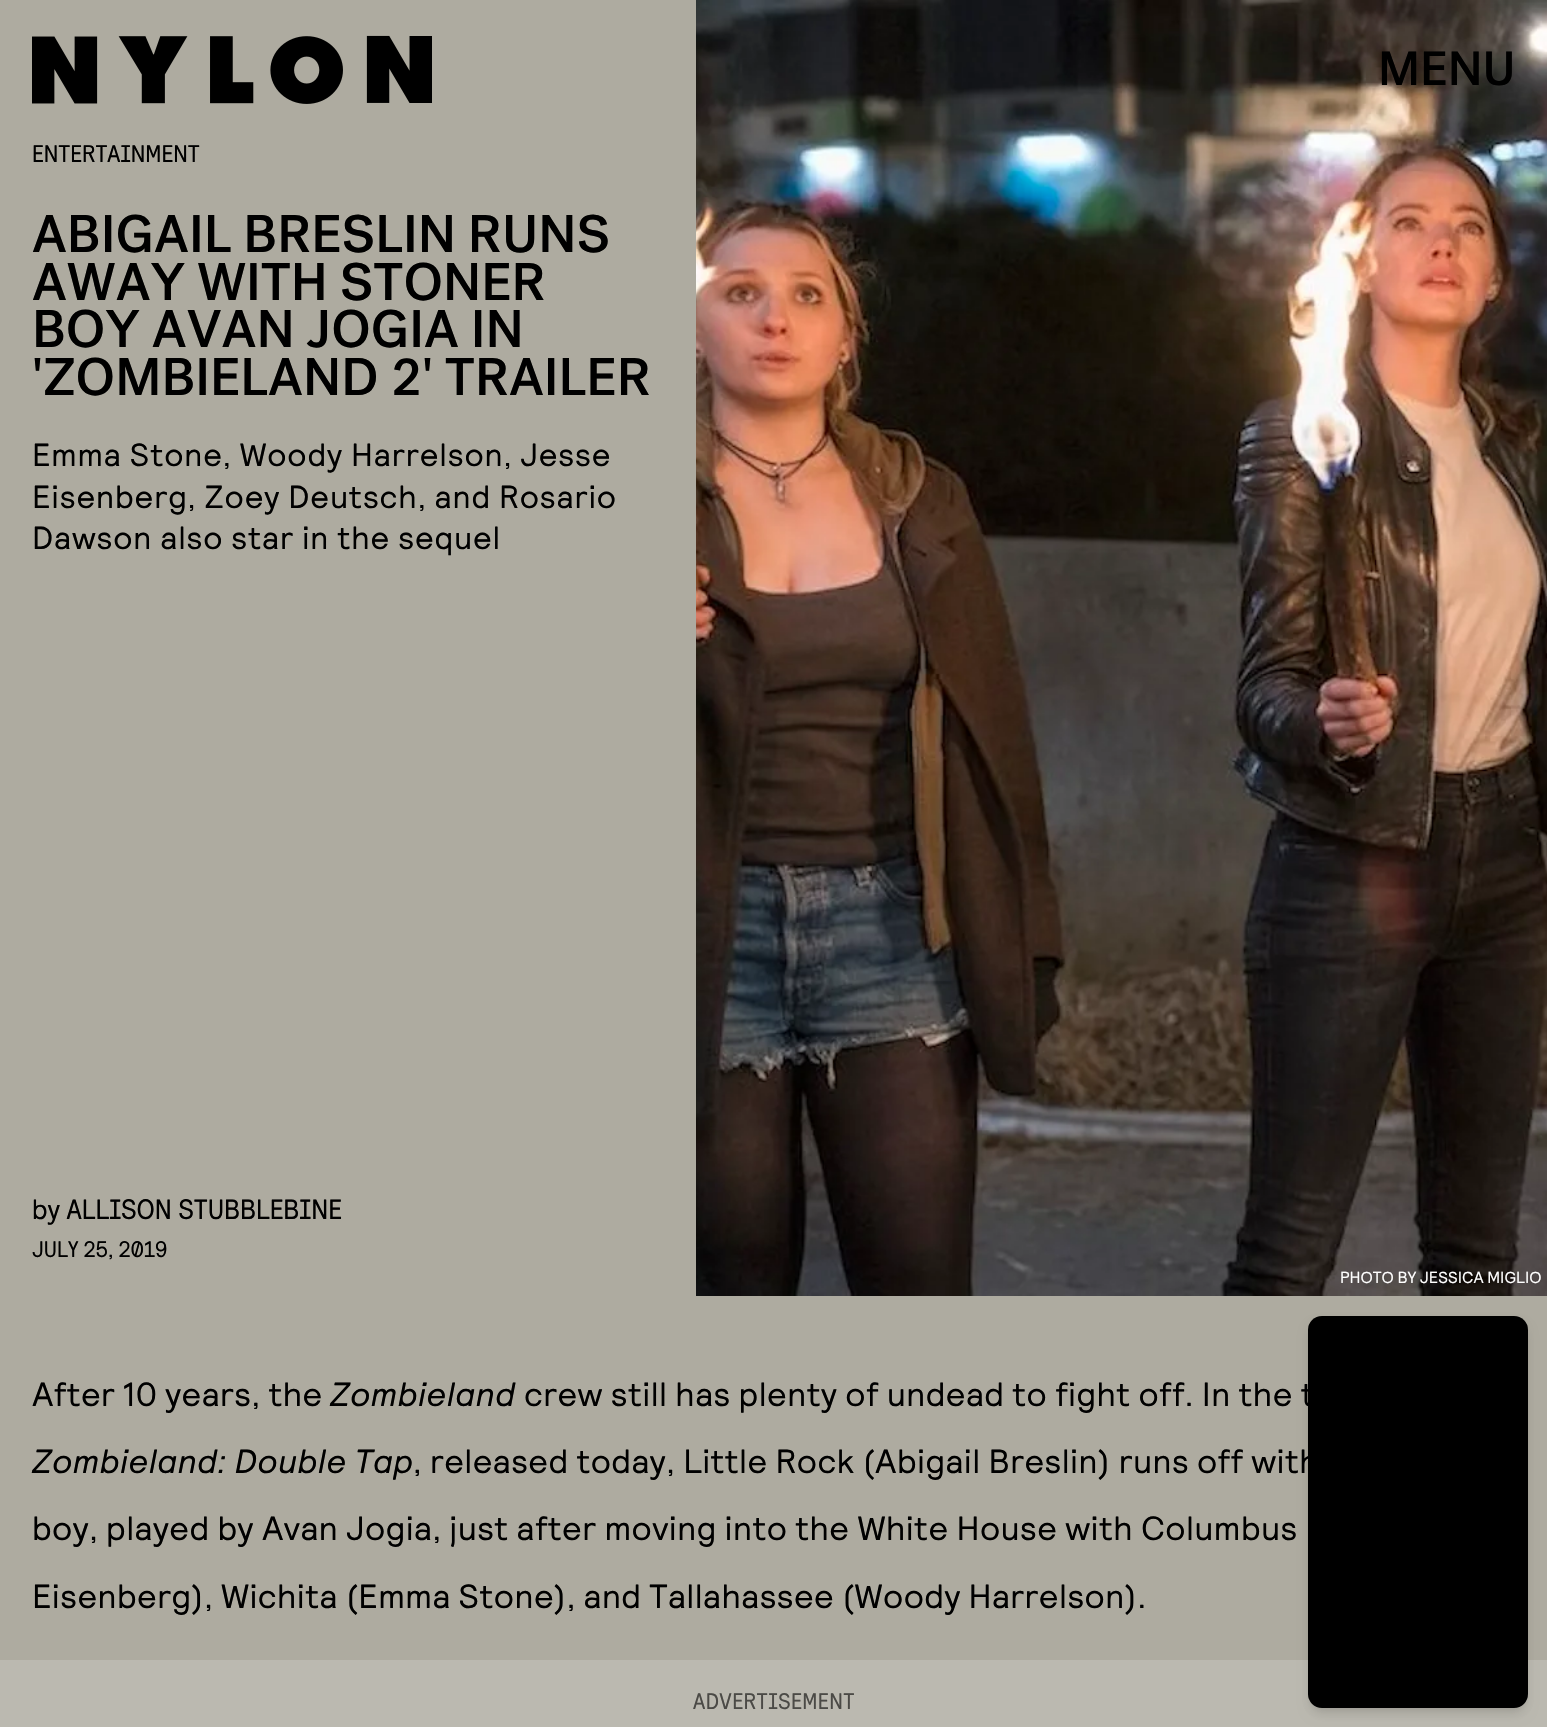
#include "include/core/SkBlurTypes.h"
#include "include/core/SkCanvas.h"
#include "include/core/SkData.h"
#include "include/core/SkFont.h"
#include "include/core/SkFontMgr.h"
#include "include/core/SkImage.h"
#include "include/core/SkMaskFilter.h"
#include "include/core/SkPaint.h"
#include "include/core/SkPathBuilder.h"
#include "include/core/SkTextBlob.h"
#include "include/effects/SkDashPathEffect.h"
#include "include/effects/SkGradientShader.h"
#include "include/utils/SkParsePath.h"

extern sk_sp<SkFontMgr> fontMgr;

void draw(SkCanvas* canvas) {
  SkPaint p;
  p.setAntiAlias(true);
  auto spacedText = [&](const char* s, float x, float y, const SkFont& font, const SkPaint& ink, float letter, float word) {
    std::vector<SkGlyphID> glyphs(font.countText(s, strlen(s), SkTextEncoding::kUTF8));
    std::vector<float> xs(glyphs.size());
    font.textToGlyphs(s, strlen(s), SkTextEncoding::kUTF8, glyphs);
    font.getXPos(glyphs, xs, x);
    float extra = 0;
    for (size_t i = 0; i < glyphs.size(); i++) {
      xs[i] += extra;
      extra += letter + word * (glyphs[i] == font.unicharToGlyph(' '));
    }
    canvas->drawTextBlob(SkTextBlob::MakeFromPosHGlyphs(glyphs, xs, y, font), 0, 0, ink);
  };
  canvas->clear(SkColorSetRGB(174, 171, 160));
  canvas->drawImageRect(SkImages::DeferredFromEncodedData(SkData::MakeFromFileName("images/1.png")), SkRect::MakeLTRB(32, 35, 432, 104), SkSamplingOptions());
  canvas->drawImageRect(SkImages::DeferredFromEncodedData(SkData::MakeFromFileName("images/2.png")), SkRect::MakeLTRB(696, 0, 1547, 1296), SkSamplingOptions());
  p.setColor(SkColorSetRGB(187, 185, 176));
  canvas->drawRect(SkRect::MakeLTRB(0, 1660, 1547, 1727), p);
  p.setColor(SkColorSetARGB(26, 0, 0, 0));
  p.setMaskFilter(SkMaskFilter::MakeBlur(kNormal_SkBlurStyle, 4));
  canvas->drawRoundRect(SkRect::MakeLTRB(1312, 1324, 1524, 1708), 10, 10, p);
  p.setMaskFilter(nullptr);
  p.setMaskFilter(SkMaskFilter::MakeBlur(kNormal_SkBlurStyle, 6));
  canvas->drawRoundRect(SkRect::MakeLTRB(1310, 1326, 1526, 1714), 12, 12, p);
  p.setMaskFilter(nullptr);
  p.setColor(SK_ColorBLACK);
  canvas->drawRoundRect(SkRect::MakeLTRB(1308, 1316, 1528, 1708), 14, 14, p);
  SkFont font1(fontMgr->matchFamilyStyle("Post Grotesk", SkFontStyle(500, SkFontStyle::kNormal_Width, SkFontStyle::kUpright_Slant)), 48);
  font1.setSubpixel(true);
  canvas->drawString("MENU", 1378, 85, font1, p);
  SkFont font2(fontMgr->matchFamilyStyle("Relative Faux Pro", SkFontStyle::Normal()), 24);
  font2.setSubpixel(true);
  canvas->drawString("ENTERTAINMENT", 32, 162, font2, p);
  SkFont font3(fontMgr->matchFamilyStyle("Post Grotesk", SkFontStyle(500, SkFontStyle::kNormal_Width, SkFontStyle::kUpright_Slant)), 52.75f);
  font3.setSubpixel(true);
  canvas->drawString("ABIGAIL BRESLIN RUNS", 32, 252, font3, p);
  canvas->drawString("AWAY WITH STONER", 32, 300, font3, p);
  canvas->drawString("BOY AVAN JOGIA IN", 32, 347, font3, p);
  canvas->drawString("'ZOMBIELAND 2' TRAILER", 32, 395, font3, p);
  SkFont font4(fontMgr->matchFamilyStyle("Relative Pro", SkFontStyle::Normal()), 32);
  font4.setSubpixel(true);
  spacedText("Emma Stone, Woody Harrelson, Jesse", 32, 466, font4, p, 0.8f, 0);
  spacedText("Eisenberg, Zoey Deutsch, and Rosario", 32, 508, font4, p, 0.8f, 0);
  spacedText("Dawson also star in the sequel", 32, 549, font4, p, 0.8f, 0);
  SkFont font5(fontMgr->matchFamilyStyle("Relative Faux Pro", SkFontStyle::Normal()), 28);
  font5.setSubpixel(true);
  canvas->drawString("by ALLISON STUBBLEBINE", 32, 1219, font5, p);
  SkFont font6(fontMgr->matchFamilyStyle("Relative Faux Pro", SkFontStyle::Normal()), 22.5f);
  font6.setSubpixel(true);
  canvas->drawString("JULY 25, 2019", 32, 1257, font6, p);
  SkFont font7(fontMgr->matchFamilyStyle("Relative Pro", SkFontStyle::Normal()), 16);
  font7.setSubpixel(true);
  p.setColor(SK_ColorWHITE);
  canvas->drawString("PHOTO BY JESSICA MIGLIO", 1340, 1283, font7, p);
  SkFont font8(fontMgr->matchFamilyStyle("Relative Pro", SkFontStyle::Normal()), 33.6f);
  font8.setSubpixel(true);
  p.setColor(SK_ColorBLACK);
  spacedText("After 10 years, the", 32, 1406, font8, p, 0.4f, 0);
  SkFont font9(fontMgr->matchFamilyStyle("Relative Pro", SkFontStyle::Italic()), 33.6f);
  font9.setSubpixel(true);
  spacedText("Zombieland", 330, 1406, font9, p, 0.4f, 0);
  spacedText("crew still has plenty of undead to fight off. In the t", 524, 1406, font8, p, 0.4f, 0);
  spacedText("Zombieland: Double Tap", 32, 1473, font9, p, 0.4f, 0);
  spacedText(", released today, Little Rock (Abigail Breslin) runs off with", 413, 1473, font8, p, 0.4f, 0);
  spacedText("boy, played by Avan Jogia, just after moving into the White House with Columbus", 32, 1540, font8, p, 0.4f, 0);
  spacedText("Eisenberg), Wichita (Emma Stone), and Tallahassee (Woody Harrelson).", 32, 1608, font8, p, 0.4f, -0.25f);
  p.setColor(SkColorSetRGB(75, 74, 70));
  spacedText("ADVERTISEMENT", 693, 1709, font6, p, 0.4f, 0);
}
